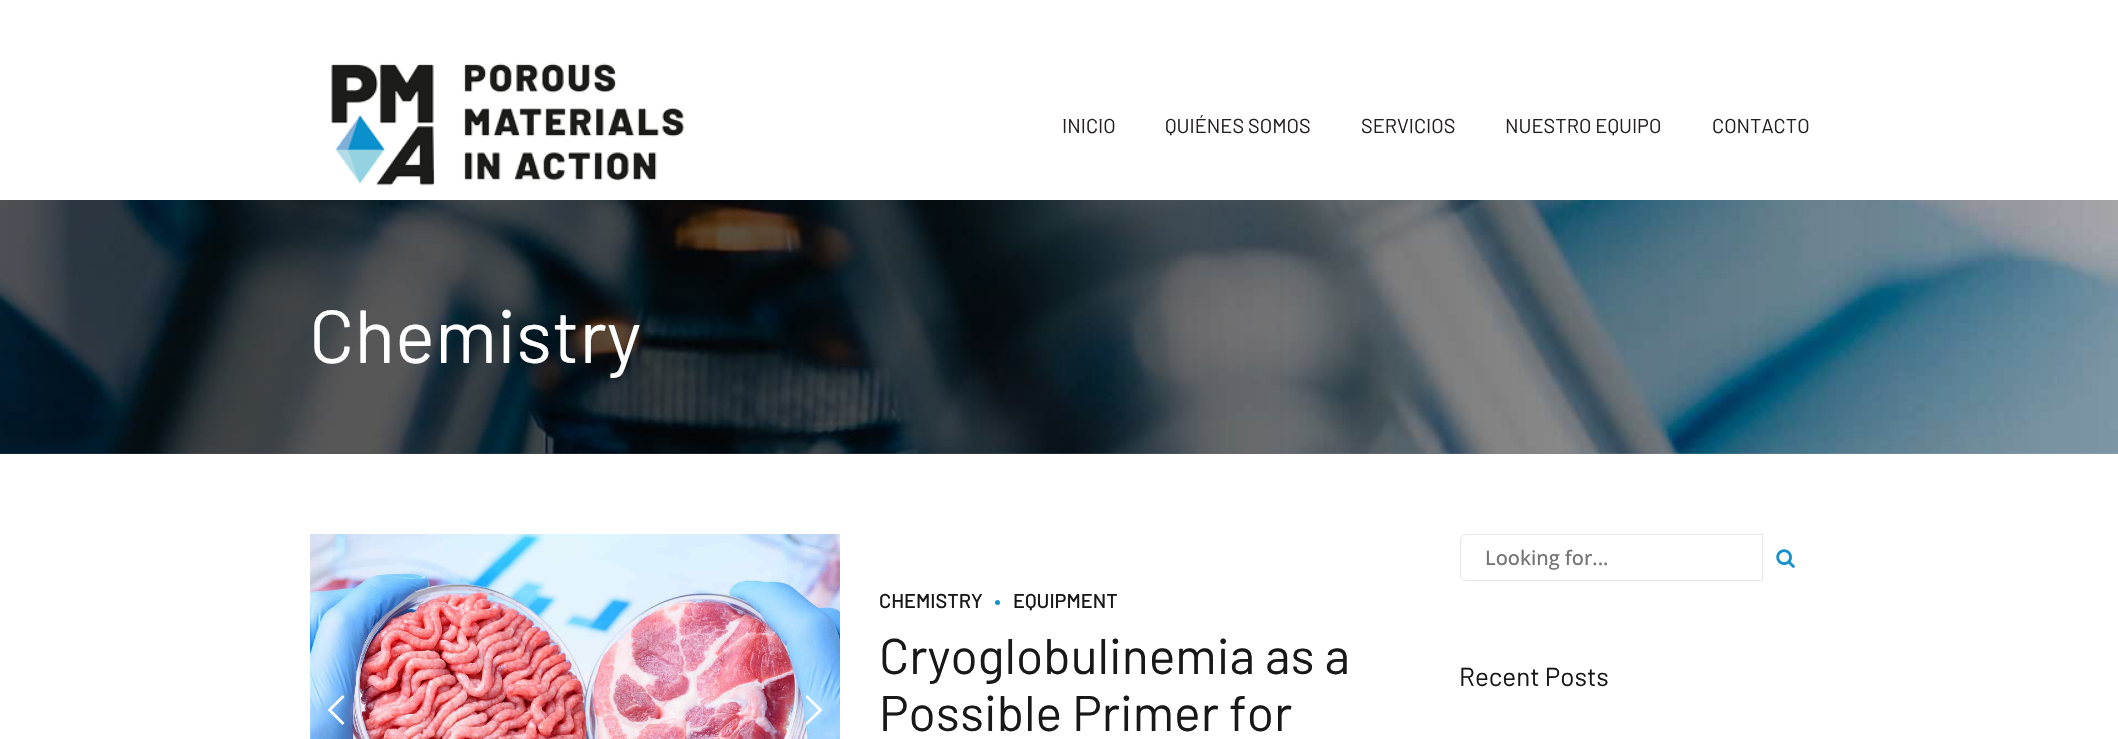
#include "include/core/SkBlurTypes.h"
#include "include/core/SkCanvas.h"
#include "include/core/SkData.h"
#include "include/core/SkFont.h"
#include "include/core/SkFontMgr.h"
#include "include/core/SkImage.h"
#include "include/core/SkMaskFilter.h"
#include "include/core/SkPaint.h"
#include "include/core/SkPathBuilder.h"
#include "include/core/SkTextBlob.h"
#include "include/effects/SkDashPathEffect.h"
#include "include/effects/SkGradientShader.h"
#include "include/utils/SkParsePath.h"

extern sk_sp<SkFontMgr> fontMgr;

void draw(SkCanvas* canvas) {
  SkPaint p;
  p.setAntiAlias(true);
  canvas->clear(SK_ColorWHITE);
  canvas->drawImageRect(SkImages::DeferredFromEncodedData(SkData::MakeFromFileName("images/1.png")), SkRect::MakeLTRB(331, 63, 684, 186), SkSamplingOptions());
  canvas->drawImageRect(SkImages::DeferredFromEncodedData(SkData::MakeFromFileName("images/2.png")), SkRect::MakeLTRB(0, 200, 2118, 454), SkSamplingOptions());
  {
    const SkColor colors[] = {SkColorSetARGB(166, 0, 0, 0), SkColorSetARGB(166, 0, 0, 0), SkColorSetARGB(77, 0, 0, 0)};
    const float stops[] = {0, 0.4f, 1};
    const SkPoint ends[] = {{0, 327}, {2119, 327}};
    p.setShader(SkGradientShader::MakeLinear(ends, colors, stops, 3, SkTileMode::kClamp));
    p.setAlpha(255);
  }
  canvas->drawRect(SkRect::MakeLTRB(0, 200, 2118, 454), p);
  canvas->drawImageRect(SkImages::DeferredFromEncodedData(SkData::MakeFromFileName("images/3.png")), SkRect::MakeLTRB(310, 534, 840, 739), SkSamplingOptions());
  p.setShader(nullptr);
  p.setColor(SK_ColorWHITE);
  canvas->drawPath(SkPathBuilder().moveTo(329.5f, 708).lineTo(327.5f, 710).lineTo(342.5f, 725).lineTo(344.5f, 723).lineTo(331.5f, 710).lineTo(344.5f, 697).lineTo(342.5f, 695).close().detach(), p);
  canvas->drawPath(SkPathBuilder().moveTo(820.5f, 712).lineTo(822.5f, 710).lineTo(807, 695).lineTo(805.5f, 697).lineTo(818.5f, 710).lineTo(805.5f, 723).lineTo(807, 725).close().detach(), p);
  p.setColor(SkColorSetRGB(21, 146, 205));
  canvas->drawCircle(997.5f, 602.5f, 2.5f, p);
  p.setStyle(SkPaint::kStroke_Style);
  p.setStrokeWidth(1);
  p.setColor(SkColorSetRGB(230, 230, 230));
  canvas->drawPath(SkPathBuilder().moveTo(1466, 534.5f).lineTo(1762.5f, 534.5f).lineTo(1762.5f, 580.5f).lineTo(1466, 580.5f).cubicTo(1463, 580.5f, 1460.5f, 578, 1460.5f, 575).lineTo(1460.5f, 540).cubicTo(1460.5f, 537, 1463, 534.5f, 1466, 534.5f).close().detach(), p);
  canvas->drawImageRect(SkImages::DeferredFromEncodedData(SkData::MakeFromFileName("images/4.png")), SkRect::MakeLTRB(1776, 549, 1795, 568), SkSamplingOptions());
  SkFont font1(fontMgr->matchFamilyStyle("Barlow", SkFontStyle::Normal()), 20);
  font1.setSubpixel(true);
  p.setStyle(SkPaint::kFill_Style);
  p.setColor(SkColorSetRGB(35, 31, 32));
  canvas->drawString("INICIO", 1062, 133, font1, p);
  canvas->drawString("QUIÉNES SOMOS", 1165, 133, font1, p);
  canvas->drawString("SERVICIOS", 1361, 133, font1, p);
  canvas->drawString("NUESTRO EQUIPO", 1505, 133, font1, p);
  canvas->drawString("CONTACTO", 1712, 133, font1, p);
  SkFont font2(fontMgr->matchFamilyStyle("Barlow", SkFontStyle::Normal()), 75);
  font2.setSubpixel(true);
  p.setColor(SK_ColorWHITE);
  canvas->drawString("Chemistry", 309, 363, font2, p);
  SkFont font3(fontMgr->matchFamilyStyle("Barlow", SkFontStyle(500, SkFontStyle::kNormal_Width, SkFontStyle::kUpright_Slant)), 20);
  font3.setSubpixel(true);
  p.setColor(SkColorSetRGB(24, 24, 24));
  canvas->drawString("CHEMISTRY", 879, 608, font3, p);
  canvas->drawString("EQUIPMENT", 1013, 608, font3, p);
  SkFont font4(fontMgr->matchFamilyStyle("Barlow", SkFontStyle::Normal()), 50);
  font4.setSubpixel(true);
  canvas->drawString("Cryoglobulinemia as a", 879, 674, font4, p);
  canvas->drawString("Possible Primer for", 879, 731, font4, p);
  SkFont font5(fontMgr->matchFamilyStyle("Open Sans", SkFontStyle(500, SkFontStyle::kNormal_Width, SkFontStyle::kUpright_Slant)), 20);
  font5.setSubpixel(true);
  p.setColor(SkColorSetRGB(117, 117, 117));
  canvas->drawString("Looking for...", 1485, 565, font5, p);
  SkFont font6(fontMgr->matchFamilyStyle("Barlow", SkFontStyle::Normal()), 26);
  font6.setSubpixel(true);
  p.setColor(SkColorSetRGB(24, 24, 24));
  canvas->drawString("Recent Posts", 1459, 686, font6, p);
}
